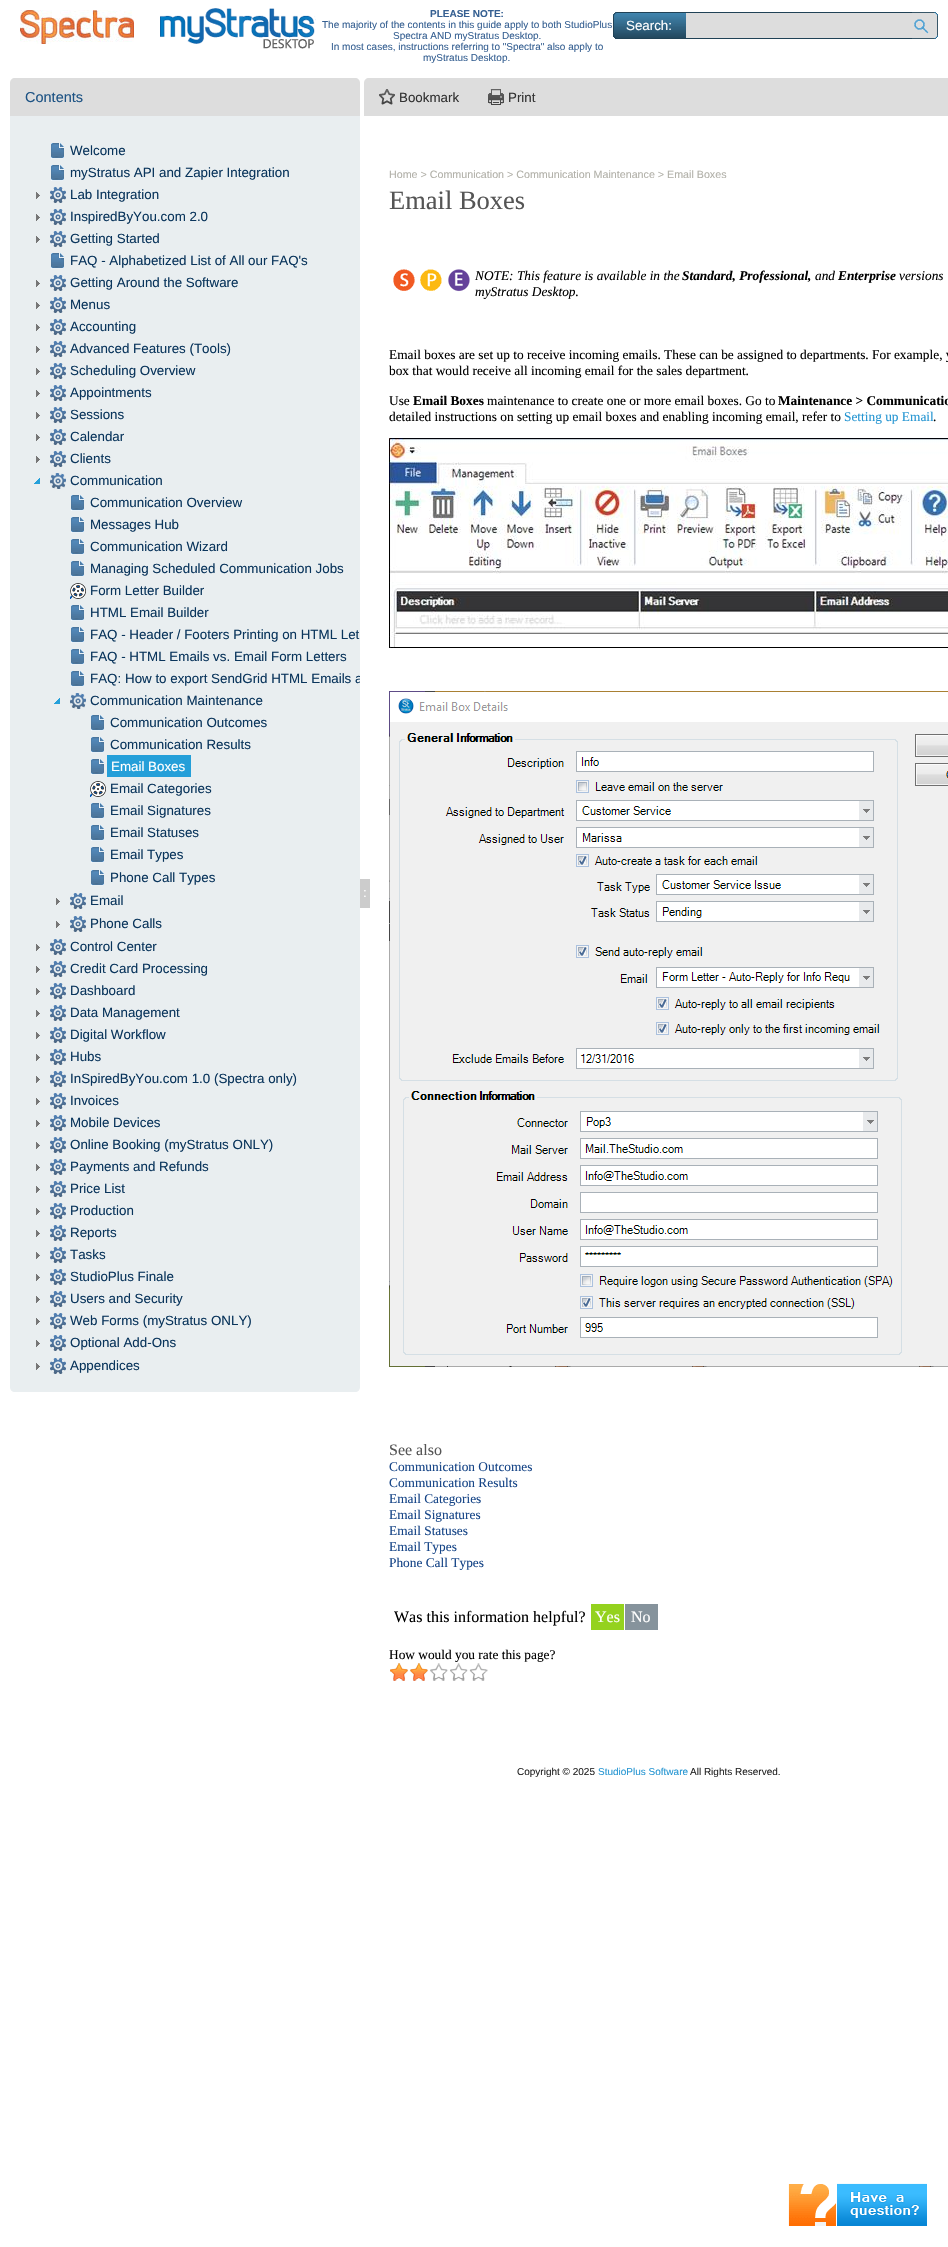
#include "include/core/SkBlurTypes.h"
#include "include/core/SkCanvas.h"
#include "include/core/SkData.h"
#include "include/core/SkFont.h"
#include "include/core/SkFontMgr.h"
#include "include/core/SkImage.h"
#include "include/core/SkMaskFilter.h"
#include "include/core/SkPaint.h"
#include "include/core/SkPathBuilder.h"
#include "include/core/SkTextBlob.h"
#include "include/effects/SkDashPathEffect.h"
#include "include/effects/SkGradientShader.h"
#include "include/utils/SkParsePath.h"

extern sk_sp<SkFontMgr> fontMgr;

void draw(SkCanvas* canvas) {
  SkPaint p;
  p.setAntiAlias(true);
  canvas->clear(SK_ColorWHITE);
  canvas->drawImageRect(SkImages::DeferredFromEncodedData(SkData::MakeFromFileName("images/1.png")), SkRect::MakeLTRB(20, 10, 134, 44), SkSamplingOptions());
  canvas->drawImageRect(SkImages::DeferredFromEncodedData(SkData::MakeFromFileName("images/2.png")), SkRect::MakeLTRB(160, 8, 316, 49), SkSamplingOptions());
  canvas->drawImageRect(SkImages::DeferredFromEncodedData(SkData::MakeFromFileName("images/3.png")), SkRect::MakeLTRB(613, 12, 686, 39), SkSamplingOptions());
  p.setColor(SkColorSetRGB(221, 221, 221));
  canvas->drawRect(SkRect::MakeLTRB(686, 13, 912, 38), p);
  p.setColor(SkColorSetRGB(32, 66, 86));
  canvas->drawRect(SkRect::MakeLTRB(686, 12, 912, 13), p);
  canvas->drawRect(SkRect::MakeLTRB(686, 38, 912, 39), p);
  canvas->drawImageRect(SkImages::DeferredFromEncodedData(SkData::MakeFromFileName("images/4.png")), SkRect::MakeLTRB(912, 12, 938, 39), SkSamplingOptions());
  p.setColor(SkColorSetRGB(221, 221, 221));
  canvas->drawPath(SkPathBuilder().moveTo(15, 78).lineTo(355, 78).cubicTo(358, 78, 360, 80, 360, 83).lineTo(360, 116).lineTo(10, 116).lineTo(10, 83).cubicTo(10, 80, 12, 78, 15, 78).close().detach(), p);
  p.setColor(SkColorSetRGB(233, 238, 240));
  canvas->drawPath(SkPathBuilder().moveTo(10, 116).lineTo(360, 116).lineTo(360, 1387).cubicTo(360, 1390, 358, 1392, 355, 1392).lineTo(15, 1392).cubicTo(12, 1392, 10, 1390, 10, 1387).close().detach(), p);
  canvas->drawImageRect(SkImages::DeferredFromEncodedData(SkData::MakeFromFileName("images/5.png")), SkRect::MakeLTRB(51, 143, 64, 159), SkSamplingOptions());
  canvas->drawImageRect(SkImages::DeferredFromEncodedData(SkData::MakeFromFileName("images/5.png")), SkRect::MakeLTRB(51, 165, 64, 181), SkSamplingOptions());
  canvas->drawImageRect(SkImages::DeferredFromEncodedData(SkData::MakeFromFileName("images/6.png")), SkRect::MakeLTRB(36, 192, 40, 199), SkSamplingOptions());
  canvas->drawImageRect(SkImages::DeferredFromEncodedData(SkData::MakeFromFileName("images/7.png")), SkRect::MakeLTRB(50, 187, 66, 203), SkSamplingOptions());
  canvas->drawImageRect(SkImages::DeferredFromEncodedData(SkData::MakeFromFileName("images/6.png")), SkRect::MakeLTRB(36, 214, 40, 221), SkSamplingOptions());
  canvas->drawImageRect(SkImages::DeferredFromEncodedData(SkData::MakeFromFileName("images/7.png")), SkRect::MakeLTRB(50, 209, 66, 225), SkSamplingOptions());
  canvas->drawImageRect(SkImages::DeferredFromEncodedData(SkData::MakeFromFileName("images/6.png")), SkRect::MakeLTRB(36, 236, 40, 243), SkSamplingOptions());
  canvas->drawImageRect(SkImages::DeferredFromEncodedData(SkData::MakeFromFileName("images/7.png")), SkRect::MakeLTRB(50, 231, 66, 247), SkSamplingOptions());
  canvas->drawImageRect(SkImages::DeferredFromEncodedData(SkData::MakeFromFileName("images/5.png")), SkRect::MakeLTRB(51, 253, 64, 269), SkSamplingOptions());
  canvas->drawImageRect(SkImages::DeferredFromEncodedData(SkData::MakeFromFileName("images/6.png")), SkRect::MakeLTRB(36, 280, 40, 287), SkSamplingOptions());
  canvas->drawImageRect(SkImages::DeferredFromEncodedData(SkData::MakeFromFileName("images/7.png")), SkRect::MakeLTRB(50, 275, 66, 291), SkSamplingOptions());
  canvas->drawImageRect(SkImages::DeferredFromEncodedData(SkData::MakeFromFileName("images/6.png")), SkRect::MakeLTRB(36, 302, 40, 309), SkSamplingOptions());
  canvas->drawImageRect(SkImages::DeferredFromEncodedData(SkData::MakeFromFileName("images/7.png")), SkRect::MakeLTRB(50, 297, 66, 313), SkSamplingOptions());
  canvas->drawImageRect(SkImages::DeferredFromEncodedData(SkData::MakeFromFileName("images/6.png")), SkRect::MakeLTRB(36, 324, 40, 331), SkSamplingOptions());
  canvas->drawImageRect(SkImages::DeferredFromEncodedData(SkData::MakeFromFileName("images/7.png")), SkRect::MakeLTRB(50, 319, 66, 335), SkSamplingOptions());
  canvas->drawImageRect(SkImages::DeferredFromEncodedData(SkData::MakeFromFileName("images/6.png")), SkRect::MakeLTRB(36, 346, 40, 353), SkSamplingOptions());
  canvas->drawImageRect(SkImages::DeferredFromEncodedData(SkData::MakeFromFileName("images/7.png")), SkRect::MakeLTRB(50, 341, 66, 357), SkSamplingOptions());
  canvas->drawImageRect(SkImages::DeferredFromEncodedData(SkData::MakeFromFileName("images/6.png")), SkRect::MakeLTRB(36, 368, 40, 375), SkSamplingOptions());
  canvas->drawImageRect(SkImages::DeferredFromEncodedData(SkData::MakeFromFileName("images/7.png")), SkRect::MakeLTRB(50, 363, 66, 379), SkSamplingOptions());
  canvas->drawImageRect(SkImages::DeferredFromEncodedData(SkData::MakeFromFileName("images/6.png")), SkRect::MakeLTRB(36, 390, 40, 397), SkSamplingOptions());
  canvas->drawImageRect(SkImages::DeferredFromEncodedData(SkData::MakeFromFileName("images/7.png")), SkRect::MakeLTRB(50, 385, 66, 401), SkSamplingOptions());
  canvas->drawImageRect(SkImages::DeferredFromEncodedData(SkData::MakeFromFileName("images/6.png")), SkRect::MakeLTRB(36, 412, 40, 419), SkSamplingOptions());
  canvas->drawImageRect(SkImages::DeferredFromEncodedData(SkData::MakeFromFileName("images/7.png")), SkRect::MakeLTRB(50, 407, 66, 423), SkSamplingOptions());
  canvas->drawImageRect(SkImages::DeferredFromEncodedData(SkData::MakeFromFileName("images/6.png")), SkRect::MakeLTRB(36, 434, 40, 441), SkSamplingOptions());
  canvas->drawImageRect(SkImages::DeferredFromEncodedData(SkData::MakeFromFileName("images/7.png")), SkRect::MakeLTRB(50, 429, 66, 445), SkSamplingOptions());
  canvas->drawImageRect(SkImages::DeferredFromEncodedData(SkData::MakeFromFileName("images/6.png")), SkRect::MakeLTRB(36, 456, 40, 463), SkSamplingOptions());
  canvas->drawImageRect(SkImages::DeferredFromEncodedData(SkData::MakeFromFileName("images/7.png")), SkRect::MakeLTRB(50, 451, 66, 467), SkSamplingOptions());
  canvas->drawImageRect(SkImages::DeferredFromEncodedData(SkData::MakeFromFileName("images/8.png")), SkRect::MakeLTRB(34, 478, 40, 484), SkSamplingOptions());
  canvas->drawImageRect(SkImages::DeferredFromEncodedData(SkData::MakeFromFileName("images/9.png")), SkRect::MakeLTRB(50, 473, 66, 489), SkSamplingOptions());
  canvas->drawImageRect(SkImages::DeferredFromEncodedData(SkData::MakeFromFileName("images/5.png")), SkRect::MakeLTRB(71, 495, 84, 511), SkSamplingOptions());
  canvas->drawImageRect(SkImages::DeferredFromEncodedData(SkData::MakeFromFileName("images/5.png")), SkRect::MakeLTRB(71, 517, 84, 533), SkSamplingOptions());
  canvas->drawImageRect(SkImages::DeferredFromEncodedData(SkData::MakeFromFileName("images/5.png")), SkRect::MakeLTRB(71, 539, 84, 555), SkSamplingOptions());
  canvas->drawImageRect(SkImages::DeferredFromEncodedData(SkData::MakeFromFileName("images/5.png")), SkRect::MakeLTRB(71, 561, 84, 577), SkSamplingOptions());
  canvas->drawImageRect(SkImages::DeferredFromEncodedData(SkData::MakeFromFileName("images/10.png")), SkRect::MakeLTRB(70, 583, 86, 599), SkSamplingOptions());
  canvas->drawImageRect(SkImages::DeferredFromEncodedData(SkData::MakeFromFileName("images/5.png")), SkRect::MakeLTRB(71, 605, 84, 621), SkSamplingOptions());
  canvas->drawImageRect(SkImages::DeferredFromEncodedData(SkData::MakeFromFileName("images/5.png")), SkRect::MakeLTRB(71, 627, 84, 643), SkSamplingOptions());
  canvas->drawImageRect(SkImages::DeferredFromEncodedData(SkData::MakeFromFileName("images/5.png")), SkRect::MakeLTRB(71, 649, 84, 665), SkSamplingOptions());
  canvas->drawImageRect(SkImages::DeferredFromEncodedData(SkData::MakeFromFileName("images/5.png")), SkRect::MakeLTRB(71, 671, 84, 687), SkSamplingOptions());
  canvas->drawImageRect(SkImages::DeferredFromEncodedData(SkData::MakeFromFileName("images/8.png")), SkRect::MakeLTRB(54, 698, 60, 704), SkSamplingOptions());
  canvas->drawImageRect(SkImages::DeferredFromEncodedData(SkData::MakeFromFileName("images/9.png")), SkRect::MakeLTRB(70, 693, 86, 709), SkSamplingOptions());
  canvas->drawImageRect(SkImages::DeferredFromEncodedData(SkData::MakeFromFileName("images/5.png")), SkRect::MakeLTRB(91, 715, 104, 731), SkSamplingOptions());
  canvas->drawImageRect(SkImages::DeferredFromEncodedData(SkData::MakeFromFileName("images/5.png")), SkRect::MakeLTRB(91, 737, 104, 753), SkSamplingOptions());
  canvas->drawImageRect(SkImages::DeferredFromEncodedData(SkData::MakeFromFileName("images/5.png")), SkRect::MakeLTRB(91, 759, 104, 775), SkSamplingOptions());
  p.setColor(SkColorSetRGB(36, 159, 217));
  canvas->drawRect(SkRect::MakeLTRB(107, 755, 191, 777), p);
  canvas->drawImageRect(SkImages::DeferredFromEncodedData(SkData::MakeFromFileName("images/10.png")), SkRect::MakeLTRB(90, 781, 106, 797), SkSamplingOptions());
  canvas->drawImageRect(SkImages::DeferredFromEncodedData(SkData::MakeFromFileName("images/5.png")), SkRect::MakeLTRB(91, 803, 104, 819), SkSamplingOptions());
  canvas->drawImageRect(SkImages::DeferredFromEncodedData(SkData::MakeFromFileName("images/5.png")), SkRect::MakeLTRB(91, 825, 104, 841), SkSamplingOptions());
  canvas->drawImageRect(SkImages::DeferredFromEncodedData(SkData::MakeFromFileName("images/5.png")), SkRect::MakeLTRB(91, 847, 104, 863), SkSamplingOptions());
  canvas->drawImageRect(SkImages::DeferredFromEncodedData(SkData::MakeFromFileName("images/5.png")), SkRect::MakeLTRB(91, 870, 104, 886), SkSamplingOptions());
  canvas->drawImageRect(SkImages::DeferredFromEncodedData(SkData::MakeFromFileName("images/6.png")), SkRect::MakeLTRB(56, 898, 60, 905), SkSamplingOptions());
  canvas->drawImageRect(SkImages::DeferredFromEncodedData(SkData::MakeFromFileName("images/7.png")), SkRect::MakeLTRB(70, 893, 86, 909), SkSamplingOptions());
  canvas->drawImageRect(SkImages::DeferredFromEncodedData(SkData::MakeFromFileName("images/6.png")), SkRect::MakeLTRB(56, 921, 60, 928), SkSamplingOptions());
  canvas->drawImageRect(SkImages::DeferredFromEncodedData(SkData::MakeFromFileName("images/7.png")), SkRect::MakeLTRB(70, 916, 86, 932), SkSamplingOptions());
  canvas->drawImageRect(SkImages::DeferredFromEncodedData(SkData::MakeFromFileName("images/6.png")), SkRect::MakeLTRB(36, 944, 40, 951), SkSamplingOptions());
  canvas->drawImageRect(SkImages::DeferredFromEncodedData(SkData::MakeFromFileName("images/7.png")), SkRect::MakeLTRB(50, 939, 66, 955), SkSamplingOptions());
  canvas->drawImageRect(SkImages::DeferredFromEncodedData(SkData::MakeFromFileName("images/6.png")), SkRect::MakeLTRB(36, 966, 40, 973), SkSamplingOptions());
  canvas->drawImageRect(SkImages::DeferredFromEncodedData(SkData::MakeFromFileName("images/7.png")), SkRect::MakeLTRB(50, 961, 66, 977), SkSamplingOptions());
  canvas->drawImageRect(SkImages::DeferredFromEncodedData(SkData::MakeFromFileName("images/6.png")), SkRect::MakeLTRB(36, 988, 40, 995), SkSamplingOptions());
  canvas->drawImageRect(SkImages::DeferredFromEncodedData(SkData::MakeFromFileName("images/7.png")), SkRect::MakeLTRB(50, 983, 66, 999), SkSamplingOptions());
  canvas->drawImageRect(SkImages::DeferredFromEncodedData(SkData::MakeFromFileName("images/6.png")), SkRect::MakeLTRB(36, 1010, 40, 1017), SkSamplingOptions());
  canvas->drawImageRect(SkImages::DeferredFromEncodedData(SkData::MakeFromFileName("images/7.png")), SkRect::MakeLTRB(50, 1005, 66, 1021), SkSamplingOptions());
  canvas->drawImageRect(SkImages::DeferredFromEncodedData(SkData::MakeFromFileName("images/6.png")), SkRect::MakeLTRB(36, 1032, 40, 1039), SkSamplingOptions());
  canvas->drawImageRect(SkImages::DeferredFromEncodedData(SkData::MakeFromFileName("images/7.png")), SkRect::MakeLTRB(50, 1027, 66, 1043), SkSamplingOptions());
  canvas->drawImageRect(SkImages::DeferredFromEncodedData(SkData::MakeFromFileName("images/6.png")), SkRect::MakeLTRB(36, 1054, 40, 1061), SkSamplingOptions());
  canvas->drawImageRect(SkImages::DeferredFromEncodedData(SkData::MakeFromFileName("images/7.png")), SkRect::MakeLTRB(50, 1049, 66, 1065), SkSamplingOptions());
  canvas->drawImageRect(SkImages::DeferredFromEncodedData(SkData::MakeFromFileName("images/6.png")), SkRect::MakeLTRB(36, 1076, 40, 1083), SkSamplingOptions());
  canvas->drawImageRect(SkImages::DeferredFromEncodedData(SkData::MakeFromFileName("images/7.png")), SkRect::MakeLTRB(50, 1071, 66, 1087), SkSamplingOptions());
  canvas->drawImageRect(SkImages::DeferredFromEncodedData(SkData::MakeFromFileName("images/6.png")), SkRect::MakeLTRB(36, 1098, 40, 1105), SkSamplingOptions());
  canvas->drawImageRect(SkImages::DeferredFromEncodedData(SkData::MakeFromFileName("images/7.png")), SkRect::MakeLTRB(50, 1093, 66, 1109), SkSamplingOptions());
  canvas->drawImageRect(SkImages::DeferredFromEncodedData(SkData::MakeFromFileName("images/6.png")), SkRect::MakeLTRB(36, 1120, 40, 1127), SkSamplingOptions());
  canvas->drawImageRect(SkImages::DeferredFromEncodedData(SkData::MakeFromFileName("images/7.png")), SkRect::MakeLTRB(50, 1115, 66, 1131), SkSamplingOptions());
  canvas->drawImageRect(SkImages::DeferredFromEncodedData(SkData::MakeFromFileName("images/6.png")), SkRect::MakeLTRB(36, 1142, 40, 1149), SkSamplingOptions());
  canvas->drawImageRect(SkImages::DeferredFromEncodedData(SkData::MakeFromFileName("images/7.png")), SkRect::MakeLTRB(50, 1137, 66, 1153), SkSamplingOptions());
  canvas->drawImageRect(SkImages::DeferredFromEncodedData(SkData::MakeFromFileName("images/6.png")), SkRect::MakeLTRB(36, 1164, 40, 1171), SkSamplingOptions());
  canvas->drawImageRect(SkImages::DeferredFromEncodedData(SkData::MakeFromFileName("images/7.png")), SkRect::MakeLTRB(50, 1159, 66, 1175), SkSamplingOptions());
  canvas->drawImageRect(SkImages::DeferredFromEncodedData(SkData::MakeFromFileName("images/6.png")), SkRect::MakeLTRB(36, 1186, 40, 1193), SkSamplingOptions());
  canvas->drawImageRect(SkImages::DeferredFromEncodedData(SkData::MakeFromFileName("images/7.png")), SkRect::MakeLTRB(50, 1181, 66, 1197), SkSamplingOptions());
  canvas->drawImageRect(SkImages::DeferredFromEncodedData(SkData::MakeFromFileName("images/6.png")), SkRect::MakeLTRB(36, 1208, 40, 1215), SkSamplingOptions());
  canvas->drawImageRect(SkImages::DeferredFromEncodedData(SkData::MakeFromFileName("images/7.png")), SkRect::MakeLTRB(50, 1203, 66, 1219), SkSamplingOptions());
  canvas->drawImageRect(SkImages::DeferredFromEncodedData(SkData::MakeFromFileName("images/6.png")), SkRect::MakeLTRB(36, 1230, 40, 1237), SkSamplingOptions());
  canvas->drawImageRect(SkImages::DeferredFromEncodedData(SkData::MakeFromFileName("images/7.png")), SkRect::MakeLTRB(50, 1225, 66, 1241), SkSamplingOptions());
  canvas->drawImageRect(SkImages::DeferredFromEncodedData(SkData::MakeFromFileName("images/6.png")), SkRect::MakeLTRB(36, 1252, 40, 1259), SkSamplingOptions());
  canvas->drawImageRect(SkImages::DeferredFromEncodedData(SkData::MakeFromFileName("images/7.png")), SkRect::MakeLTRB(50, 1247, 66, 1263), SkSamplingOptions());
  canvas->drawImageRect(SkImages::DeferredFromEncodedData(SkData::MakeFromFileName("images/6.png")), SkRect::MakeLTRB(36, 1274, 40, 1281), SkSamplingOptions());
  canvas->drawImageRect(SkImages::DeferredFromEncodedData(SkData::MakeFromFileName("images/7.png")), SkRect::MakeLTRB(50, 1269, 66, 1285), SkSamplingOptions());
  canvas->drawImageRect(SkImages::DeferredFromEncodedData(SkData::MakeFromFileName("images/6.png")), SkRect::MakeLTRB(36, 1296, 40, 1303), SkSamplingOptions());
  canvas->drawImageRect(SkImages::DeferredFromEncodedData(SkData::MakeFromFileName("images/7.png")), SkRect::MakeLTRB(50, 1291, 66, 1307), SkSamplingOptions());
  canvas->drawImageRect(SkImages::DeferredFromEncodedData(SkData::MakeFromFileName("images/6.png")), SkRect::MakeLTRB(36, 1318, 40, 1325), SkSamplingOptions());
  canvas->drawImageRect(SkImages::DeferredFromEncodedData(SkData::MakeFromFileName("images/7.png")), SkRect::MakeLTRB(50, 1313, 66, 1329), SkSamplingOptions());
  canvas->drawImageRect(SkImages::DeferredFromEncodedData(SkData::MakeFromFileName("images/6.png")), SkRect::MakeLTRB(36, 1340, 40, 1347), SkSamplingOptions());
  canvas->drawImageRect(SkImages::DeferredFromEncodedData(SkData::MakeFromFileName("images/7.png")), SkRect::MakeLTRB(50, 1335, 66, 1351), SkSamplingOptions());
  canvas->drawImageRect(SkImages::DeferredFromEncodedData(SkData::MakeFromFileName("images/6.png")), SkRect::MakeLTRB(36, 1363, 40, 1370), SkSamplingOptions());
  canvas->drawImageRect(SkImages::DeferredFromEncodedData(SkData::MakeFromFileName("images/7.png")), SkRect::MakeLTRB(50, 1358, 66, 1374), SkSamplingOptions());
  p.setColor(SkColorSetRGB(204, 204, 204));
  canvas->drawRect(SkRect::MakeLTRB(360, 879, 370, 908), p);
  p.setColor(SkColorSetRGB(221, 221, 221));
  canvas->drawPath(SkPathBuilder().moveTo(369, 78).lineTo(948, 78).cubicTo(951, 78, 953, 80, 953, 83).lineTo(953, 116).lineTo(364, 116).lineTo(364, 83).cubicTo(364, 80, 366, 78, 369, 78).close().detach(), p);
  canvas->drawImageRect(SkImages::DeferredFromEncodedData(SkData::MakeFromFileName("images/11.png")), SkRect::MakeLTRB(379, 89, 395, 105), SkSamplingOptions());
  canvas->drawImageRect(SkImages::DeferredFromEncodedData(SkData::MakeFromFileName("images/12.png")), SkRect::MakeLTRB(488, 89, 504, 105), SkSamplingOptions());
  canvas->drawImageRect(SkImages::DeferredFromEncodedData(SkData::MakeFromFileName("images/13.png")), SkRect::MakeLTRB(393, 269, 415, 291), SkSamplingOptions());
  canvas->drawImageRect(SkImages::DeferredFromEncodedData(SkData::MakeFromFileName("images/14.png")), SkRect::MakeLTRB(420, 269, 442, 291), SkSamplingOptions());
  canvas->drawImageRect(SkImages::DeferredFromEncodedData(SkData::MakeFromFileName("images/15.png")), SkRect::MakeLTRB(448, 269, 470, 292), SkSamplingOptions());
  canvas->drawImageRect(SkImages::DeferredFromEncodedData(SkData::MakeFromFileName("images/16.png")), SkRect::MakeLTRB(389, 438, 948, 648), SkSamplingOptions());
  canvas->drawImageRect(SkImages::DeferredFromEncodedData(SkData::MakeFromFileName("images/17.png")), SkRect::MakeLTRB(389, 691, 948, 1367), SkSamplingOptions());
  p.setColor(SkColorSetRGB(148, 210, 30));
  canvas->drawRect(SkRect::MakeLTRB(591, 1604, 624, 1630), p);
  p.setColor(SkColorSetRGB(134, 147, 156));
  canvas->drawRect(SkRect::MakeLTRB(625, 1604, 658, 1630), p);
  canvas->drawImageRect(SkImages::DeferredFromEncodedData(SkData::MakeFromFileName("images/18.png")), SkRect::MakeLTRB(390, 1663, 488, 1681), SkSamplingOptions());
  canvas->drawImageRect(SkImages::DeferredFromEncodedData(SkData::MakeFromFileName("images/19.png")), SkRect::MakeLTRB(390, 1663, 428, 1681), SkSamplingOptions());
  canvas->drawImageRect(SkImages::DeferredFromEncodedData(SkData::MakeFromFileName("images/20.png")), SkRect::MakeLTRB(788, 2183, 927, 2226), SkSamplingOptions());
  SkFont font1(fontMgr->matchFamilyStyle("Liberation Sans", SkFontStyle::Bold()), 10);
  font1.setSubpixel(true);
  p.setColor(SkColorSetRGB(54, 96, 146));
  canvas->drawString("PLEASE NOTE:", 430, 17, font1, p);
  SkFont font2(fontMgr->matchFamilyStyle("Liberation Sans", SkFontStyle::Normal()), 10);
  font2.setSubpixel(true);
  canvas->drawString("The majority of the contents in this guide apply to both StudioPlus", 322, 28, font2, p);
  canvas->drawString("Spectra AND myStratus Desktop.", 393, 39, font2, p);
  canvas->drawString("In most cases, instructions referring to \"Spectra\" also apply to", 331, 50, font2, p);
  canvas->drawString("myStratus Desktop.", 423, 61, font2, p);
  SkFont font3(fontMgr->matchFamilyStyle("Liberation Sans", SkFontStyle::Normal()), 13.35f);
  font3.setSubpixel(true);
  p.setColor(SK_ColorWHITE);
  canvas->drawString("Search:", 626, 30, font3, p);
  SkFont font4(fontMgr->matchFamilyStyle("Liberation Sans", SkFontStyle::Normal()), 14.5f);
  font4.setSubpixel(true);
  p.setColor(SkColorSetRGB(29, 83, 132));
  canvas->drawString("Contents", 25, 102, font4, p);
  p.setColor(SkColorSetRGB(10, 53, 92));
  canvas->drawString("Welcome", 70, 155, font3, p);
  canvas->drawString("myStratus API and Zapier Integration", 70, 177, font3, p);
  canvas->drawString("Lab Integration", 70, 199, font3, p);
  canvas->drawString("InspiredByYou.com 2.0", 70, 221, font3, p);
  canvas->drawString("Getting Started", 70, 243, font3, p);
  canvas->drawString("FAQ - Alphabetized List of All our FAQ's", 70, 265, font3, p);
  canvas->drawString("Getting Around the Software", 70, 287, font3, p);
  canvas->drawString("Menus", 70, 309, font3, p);
  canvas->drawString("Accounting", 70, 331, font3, p);
  canvas->drawString("Advanced Features (Tools)", 70, 353, font3, p);
  canvas->drawString("Scheduling Overview", 70, 375, font3, p);
  canvas->drawString("Appointments", 70, 397, font3, p);
  canvas->drawString("Sessions", 70, 419, font3, p);
  canvas->drawString("Calendar", 70, 441, font3, p);
  canvas->drawString("Clients", 70, 463, font3, p);
  canvas->drawString("Communication", 70, 485, font3, p);
  canvas->drawString("Communication Overview", 90, 507, font3, p);
  canvas->drawString("Messages Hub", 90, 529, font3, p);
  canvas->drawString("Communication Wizard", 90, 551, font3, p);
  canvas->drawString("Managing Scheduled Communication Jobs", 90, 573, font3, p);
  canvas->drawString("Form Letter Builder", 90, 595, font3, p);
  canvas->drawString("HTML Email Builder", 90, 617, font3, p);
  canvas->drawString("FAQ - Header / Footers Printing on HTML Let", 90, 639, font3, p);
  canvas->drawString("FAQ - HTML Emails vs. Email Form Letters", 90, 661, font3, p);
  canvas->drawString("FAQ:", 90, 683, font3, p);
  canvas->save();
  canvas->clipRect(SkRect::MakeLTRB(10, 140, 360, 1392));
  canvas->drawString("How to export SendGrid HTML Emails a", 125, 683, font3, p);
  canvas->restore();
  canvas->drawString("Communication Maintenance", 90, 705, font3, p);
  canvas->drawString("Communication Outcomes", 110, 727, font3, p);
  canvas->drawString("Communication Results", 110, 749, font3, p);
  p.setColor(SK_ColorWHITE);
  canvas->drawString("Email Boxes", 111, 771, font3, p);
  p.setColor(SkColorSetRGB(10, 53, 92));
  canvas->drawString("Email Categories", 110, 793, font3, p);
  canvas->drawString("Email Signatures", 110, 815, font3, p);
  canvas->drawString("Email Statuses", 110, 837, font3, p);
  canvas->drawString("Email Types", 110, 859, font3, p);
  canvas->drawString("Phone Call Types", 110, 882, font3, p);
  canvas->drawString("Email", 90, 905, font3, p);
  canvas->drawString("Phone Calls", 90, 928, font3, p);
  canvas->drawString("Control Center", 70, 951, font3, p);
  canvas->drawString("Credit Card Processing", 70, 973, font3, p);
  canvas->drawString("Dashboard", 70, 995, font3, p);
  canvas->drawString("Data Management", 70, 1017, font3, p);
  canvas->drawString("Digital Workflow", 70, 1039, font3, p);
  canvas->drawString("Hubs", 70, 1061, font3, p);
  canvas->drawString("InSpiredByYou.com 1.0 (Spectra only)", 70, 1083, font3, p);
  canvas->drawString("Invoices", 70, 1105, font3, p);
  canvas->drawString("Mobile Devices", 70, 1127, font3, p);
  canvas->drawString("Online Booking (myStratus ONLY)", 70, 1149, font3, p);
  canvas->drawString("Payments and Refunds", 70, 1171, font3, p);
  canvas->drawString("Price List", 70, 1193, font3, p);
  canvas->drawString("Production", 70, 1215, font3, p);
  canvas->drawString("Reports", 70, 1237, font3, p);
  canvas->drawString("Tasks", 70, 1259, font3, p);
  canvas->drawString("StudioPlus Finale", 70, 1281, font3, p);
  canvas->drawString("Users and Security", 70, 1303, font3, p);
  canvas->drawString("Web Forms (myStratus ONLY)", 70, 1325, font3, p);
  canvas->drawString("Optional Add-Ons", 70, 1347, font3, p);
  canvas->drawString("Appendices", 70, 1370, font3, p);
  p.setColor(SK_ColorWHITE);
  canvas->drawString(":", 363, 897, font3, p);
  p.setColor(SkColorSetRGB(51, 51, 51));
  canvas->drawString("Bookmark", 399, 102, font3, p);
  canvas->drawString("Print", 508, 102, font3, p);
  SkFont font5(fontMgr->matchFamilyStyle("Liberation Sans", SkFontStyle::Normal()), 10.7f);
  font5.setSubpixel(true);
  p.setColor(SkColorSetRGB(177, 176, 168));
  canvas->drawString("Home > Communication > Communication Maintenance > Email Boxes", 389, 178, font5, p);
  SkFont font6(fontMgr->matchFamilyStyle("Liberation Serif", SkFontStyle::Normal()), 26.5f);
  font6.setSubpixel(true);
  p.setColor(SkColorSetRGB(85, 85, 85));
  canvas->drawString("Email Boxes", 389, 209, font6, p);
  SkFont font7(fontMgr->matchFamilyStyle("Liberation Serif", SkFontStyle::Italic()), 13.35f);
  font7.setSubpixel(true);
  p.setColor(SK_ColorBLACK);
  canvas->drawString("NOTE: This feature is available in the", 475, 280, font7, p);
  SkFont font8(fontMgr->matchFamilyStyle("Liberation Serif", SkFontStyle::BoldItalic()), 13.35f);
  font8.setSubpixel(true);
  canvas->drawString("Standard, Professional,", 682, 280, font8, p);
  canvas->drawString("and", 815, 280, font7, p);
  canvas->drawString("Enterprise", 838, 280, font8, p);
  canvas->drawString("versions", 899, 280, font7, p);
  canvas->drawString("myStratus Desktop.", 475, 296, font7, p);
  SkFont font9(fontMgr->matchFamilyStyle("Liberation Serif", SkFontStyle::Normal()), 13.35f);
  font9.setSubpixel(true);
  canvas->drawString("Email boxes are set up to receive incoming emails. These can be assigned to departments. For example, y", 389, 359, font9, p);
  canvas->drawString("box that would receive all incoming email for the sales department.", 389, 375, font9, p);
  canvas->drawString("Use", 389, 405, font9, p);
  SkFont font10(fontMgr->matchFamilyStyle("Liberation Serif", SkFontStyle::Bold()), 13.35f);
  font10.setSubpixel(true);
  canvas->drawString("Email Boxes", 413, 405, font10, p);
  canvas->drawString("maintenance to create one or more email boxes. Go to", 487, 405, font9, p);
  canvas->drawString("Maintenance > Communicatio", 778, 405, font10, p);
  canvas->drawString("detailed instructions on setting up email boxes and enabling incoming email, refer to", 389, 421, font9, p);
  p.setColor(SkColorSetRGB(36, 149, 210));
  canvas->drawString("Setting up Email", 844, 421, font9, p);
  p.setColor(SK_ColorBLACK);
  canvas->drawString(".", 933, 421, font9, p);
  SkFont font11(fontMgr->matchFamilyStyle("Liberation Serif", SkFontStyle::Normal()), 16);
  font11.setSubpixel(true);
  p.setColor(SkColorSetRGB(85, 85, 85));
  canvas->drawString("See also", 389, 1455, font11, p);
  p.setColor(SkColorSetRGB(22, 69, 135));
  canvas->drawString("Communication Outcomes", 389, 1471, font9, p);
  canvas->drawString("Communication Results", 389, 1487, font9, p);
  canvas->drawString("Email Categories", 389, 1503, font9, p);
  canvas->drawString("Email Signatures", 389, 1519, font9, p);
  canvas->drawString("Email Statuses", 389, 1535, font9, p);
  canvas->drawString("Email Types", 389, 1551, font9, p);
  canvas->drawString("Phone Call Types", 389, 1567, font9, p);
  p.setColor(SK_ColorBLACK);
  canvas->drawString("Was this information helpful?", 394, 1622, font11, p);
  p.setColor(SK_ColorWHITE);
  canvas->drawString("Yes", 595, 1622, font11, p);
  canvas->drawString("No", 631, 1622, font11, p);
  p.setColor(SK_ColorBLACK);
  canvas->drawString("How would you rate this page?", 389, 1659, font9, p);
  p.setColor(SkColorSetRGB(38, 38, 38));
  canvas->drawString("Copyright © 2025", 517, 1775, font2, p);
  p.setColor(SkColorSetRGB(36, 149, 210));
  canvas->drawString("StudioPlus Software", 598, 1775, font2, p);
  p.setColor(SkColorSetRGB(38, 38, 38));
  canvas->drawString("All Rights Reserved.", 690, 1775, font2, p);
}
